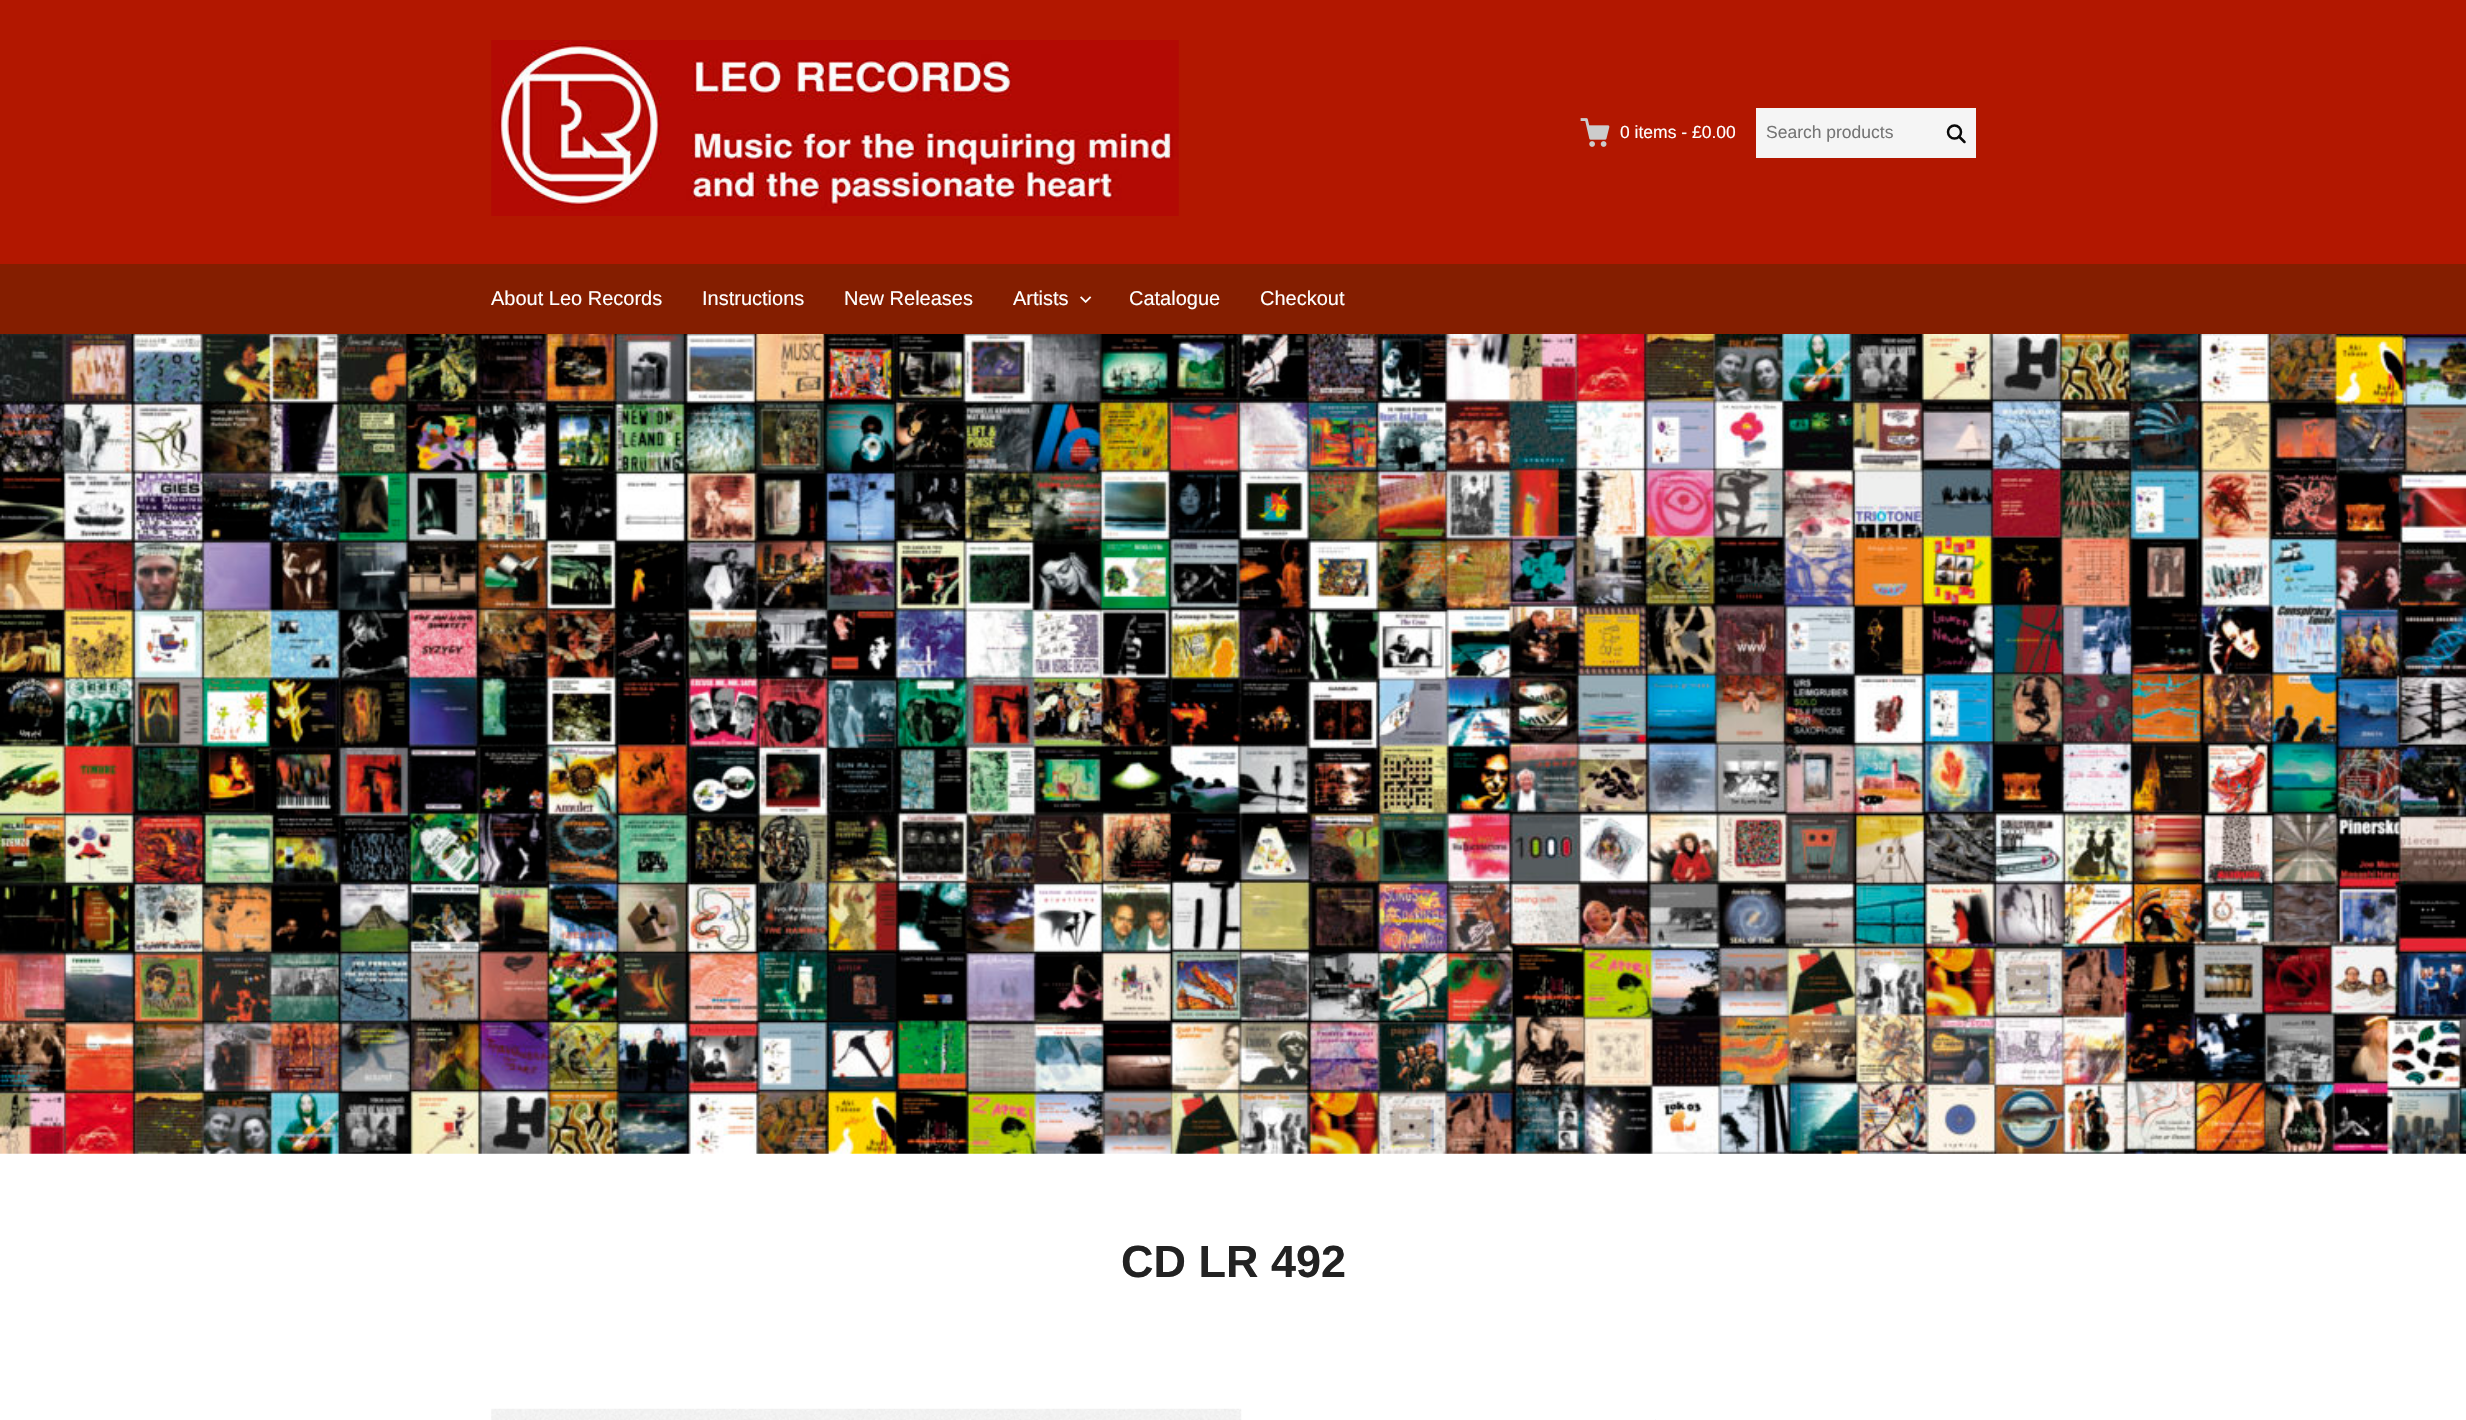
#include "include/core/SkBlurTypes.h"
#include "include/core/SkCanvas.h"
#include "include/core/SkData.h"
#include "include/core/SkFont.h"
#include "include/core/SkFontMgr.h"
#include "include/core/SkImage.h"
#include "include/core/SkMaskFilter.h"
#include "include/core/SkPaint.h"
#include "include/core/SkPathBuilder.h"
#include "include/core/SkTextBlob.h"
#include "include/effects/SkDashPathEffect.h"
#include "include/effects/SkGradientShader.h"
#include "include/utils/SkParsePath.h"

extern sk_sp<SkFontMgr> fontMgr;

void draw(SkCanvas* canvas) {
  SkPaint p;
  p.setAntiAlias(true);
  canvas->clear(SK_ColorWHITE);
  p.setColor(SkColorSetRGB(178, 23, 0));
  canvas->drawRect(SkRect::MakeLTRB(0, 0, 2466, 264), p);
  canvas->drawImageRect(SkImages::DeferredFromEncodedData(SkData::MakeFromFileName("images/1.png")), SkRect::MakeLTRB(491, 40, 1179, 216), SkSamplingOptions());
  canvas->drawImageRect(SkImages::DeferredFromEncodedData(SkData::MakeFromFileName("images/2.png")), SkRect::MakeLTRB(1580, 118, 1610, 147), SkSamplingOptions());
  p.setColor(SkColorSetRGB(245, 245, 245));
  canvas->drawRect(SkRect::MakeLTRB(1756, 108, 1976, 158), p);
  p.setStyle(SkPaint::kStroke_Style);
  p.setStrokeWidth(2.5f);
  p.setColor(SkColorSetRGB(10, 10, 10));
  canvas->drawCircle(1954.5f, 132, 6.5f, p);
  p.setStrokeCap(SkPaint::kRound_Cap);
  p.setStrokeJoin(SkPaint::kRound_Join);
  canvas->drawPath(SkPathBuilder().moveTo(1959, 136.5f).lineTo(1964.5f, 142).detach(), p);
  p.setStyle(SkPaint::kFill_Style);
  p.setColor(SkColorSetRGB(132, 30, 0));
  canvas->drawRect(SkRect::MakeLTRB(0, 264, 2466, 334), p);
  canvas->drawImageRect(SkImages::DeferredFromEncodedData(SkData::MakeFromFileName("images/3.png")), SkRect::MakeLTRB(1080, 296, 1092, 303), SkSamplingOptions());
  canvas->drawImageRect(SkImages::DeferredFromEncodedData(SkData::MakeFromFileName("images/4.png")), SkRect::MakeLTRB(0, 334, 2466, 1154), SkSamplingOptions());
  canvas->drawImageRect(SkImages::DeferredFromEncodedData(SkData::MakeFromFileName("images/5.png")), SkRect::MakeLTRB(491, 1408, 1242, 1420), SkSamplingOptions());
  p.setColor(SkColorSetRGB(250, 250, 250));
  canvas->drawRect(SkRect::MakeLTRB(1655, 1419, 1656, 1420), p);
  SkFont font1(fontMgr->matchFamilyStyle("Liberation Sans", SkFontStyle::Normal()), 17.5f);
  font1.setSubpixel(true);
  p.setColor(SK_ColorWHITE);
  canvas->drawString("0 items - £0.00", 1620, 138, font1, p);
  p.setColor(SkColorSetRGB(117, 117, 117));
  canvas->drawString("Search products", 1766, 138, font1, p);
  SkFont font2(fontMgr->matchFamilyStyle("Liberation Sans", SkFontStyle::Normal()), 20);
  font2.setSubpixel(true);
  p.setColor(SK_ColorWHITE);
  canvas->drawString("About Leo Records", 491, 305, font2, p);
  canvas->drawString("Instructions", 702, 305, font2, p);
  canvas->drawString("New Releases", 844, 305, font2, p);
  canvas->drawString("Artists", 1013, 305, font2, p);
  canvas->drawString("Catalogue", 1129, 305, font2, p);
  canvas->drawString("Checkout", 1260, 305, font2, p);
  SkFont font3(fontMgr->matchFamilyStyle("Liberation Sans", SkFontStyle::Bold()), 45);
  font3.setSubpixel(true);
  p.setColor(SkColorSetRGB(34, 34, 34));
  canvas->drawString("CD LR 492", 1121, 1277, font3, p);
}
